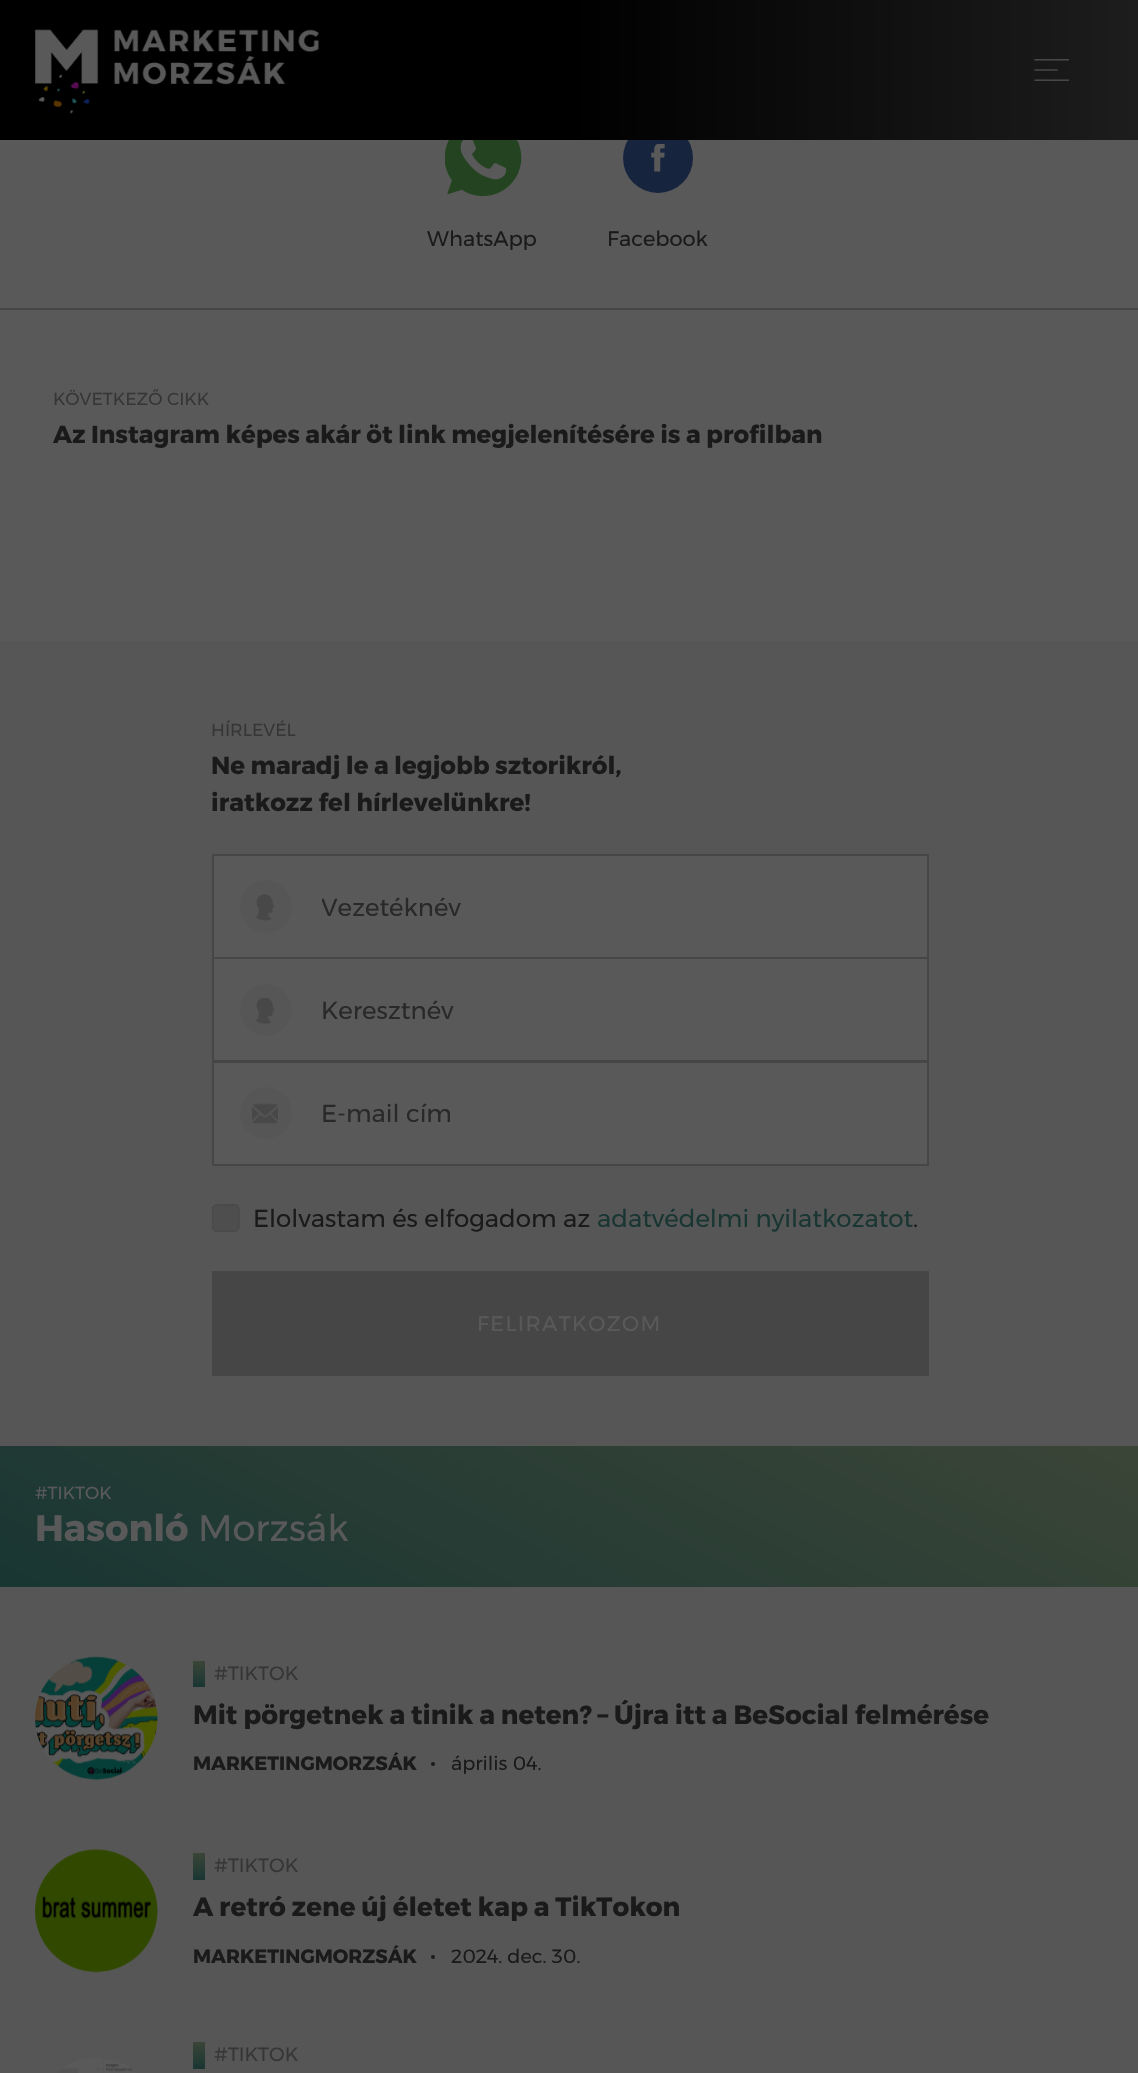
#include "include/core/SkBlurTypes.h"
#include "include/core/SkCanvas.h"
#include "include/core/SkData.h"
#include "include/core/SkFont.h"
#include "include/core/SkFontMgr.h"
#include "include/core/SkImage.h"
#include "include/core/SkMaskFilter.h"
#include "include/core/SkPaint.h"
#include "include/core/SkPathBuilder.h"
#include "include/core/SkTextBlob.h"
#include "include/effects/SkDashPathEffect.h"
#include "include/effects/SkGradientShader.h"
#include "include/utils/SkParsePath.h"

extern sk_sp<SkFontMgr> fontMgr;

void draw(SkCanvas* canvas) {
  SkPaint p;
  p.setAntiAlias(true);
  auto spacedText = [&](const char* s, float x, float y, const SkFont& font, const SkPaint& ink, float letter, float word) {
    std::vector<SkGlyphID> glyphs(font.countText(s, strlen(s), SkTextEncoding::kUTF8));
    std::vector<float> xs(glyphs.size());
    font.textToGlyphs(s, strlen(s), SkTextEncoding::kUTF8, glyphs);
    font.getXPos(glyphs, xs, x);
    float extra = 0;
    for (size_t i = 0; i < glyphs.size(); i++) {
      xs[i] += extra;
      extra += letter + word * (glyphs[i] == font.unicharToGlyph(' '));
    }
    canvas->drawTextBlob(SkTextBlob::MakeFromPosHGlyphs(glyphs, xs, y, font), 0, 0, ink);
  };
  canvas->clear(SkColorSetRGB(89, 89, 89));
  p.setColor(SkColorSetRGB(23, 36, 62));
  canvas->drawCircle(658, 158, 35, p);
  {
    const SkColor colors[] = {SK_ColorBLACK, SK_ColorBLACK, SkColorSetRGB(29, 29, 29)};
    const float stops[] = {0, 0.5f, 1};
    const SkPoint ends[] = {{0, 70}, {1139, 70}};
    p.setShader(SkGradientShader::MakeLinear(ends, colors, stops, 3, SkTileMode::kClamp));
    p.setAlpha(255);
  }
  canvas->drawRect(SkRect::MakeLTRB(0, 0, 1138, 140), p);
  canvas->drawImageRect(SkImages::DeferredFromEncodedData(SkData::MakeFromFileName("images/1.png")), SkRect::MakeLTRB(35, 29, 319, 114), SkSamplingOptions());
  canvas->drawImageRect(SkImages::DeferredFromEncodedData(SkData::MakeFromFileName("images/2.png")), SkRect::MakeLTRB(1034, 59, 1069, 81), SkSamplingOptions());
  p.setShader(nullptr);
  p.setColor(SkColorSetRGB(70, 70, 70));
  canvas->drawRect(SkRect::MakeLTRB(0, 308, 1138, 310), p);
  canvas->drawImageRect(SkImages::DeferredFromEncodedData(SkData::MakeFromFileName("images/3.png")), SkRect::MakeLTRB(445, 140, 522, 197), SkSamplingOptions());
  canvas->drawImageRect(SkImages::DeferredFromEncodedData(SkData::MakeFromFileName("images/4.png")), SkRect::MakeLTRB(651, 144, 665, 172), SkSamplingOptions());
  p.setColor(SkColorSetRGB(86, 86, 86));
  canvas->drawRect(SkRect::MakeLTRB(0, 641, 1138, 2073), p);
  p.setColor(SkColorSetRGB(89, 89, 89));
  canvas->drawRect(SkRect::MakeLTRB(213, 855, 928, 958), p);
  p.setStyle(SkPaint::kStroke_Style);
  p.setStrokeWidth(2);
  p.setColor(SkColorSetRGB(70, 70, 70));
  canvas->drawRect(SkRect::MakeLTRB(213, 855, 928, 958), p);
  p.setStyle(SkPaint::kFill_Style);
  p.setColor(SkColorSetRGB(86, 86, 86));
  canvas->drawRoundRect(SkRect::MakeLTRB(240, 880, 292, 933), 26, 26, p);
  canvas->drawImageRect(SkImages::DeferredFromEncodedData(SkData::MakeFromFileName("images/5.png")), SkRect::MakeLTRB(256, 894, 275, 921), SkSamplingOptions());
  p.setColor(SkColorSetRGB(89, 89, 89));
  canvas->drawRect(SkRect::MakeLTRB(213, 958, 928, 1061), p);
  p.setStyle(SkPaint::kStroke_Style);
  p.setColor(SkColorSetRGB(70, 70, 70));
  canvas->drawRect(SkRect::MakeLTRB(213, 958, 928, 1061), p);
  p.setStyle(SkPaint::kFill_Style);
  p.setColor(SkColorSetRGB(86, 86, 86));
  canvas->drawCircle(266, 1010, 26, p);
  canvas->drawImageRect(SkImages::DeferredFromEncodedData(SkData::MakeFromFileName("images/6.png")), SkRect::MakeLTRB(256, 998, 275, 1024), SkSamplingOptions());
  p.setColor(SkColorSetRGB(89, 89, 89));
  canvas->drawRect(SkRect::MakeLTRB(213, 1062, 928, 1165), p);
  p.setStyle(SkPaint::kStroke_Style);
  p.setColor(SkColorSetRGB(70, 70, 70));
  canvas->drawRect(SkRect::MakeLTRB(213, 1062, 928, 1165), p);
  p.setStyle(SkPaint::kFill_Style);
  p.setColor(SkColorSetRGB(86, 86, 86));
  canvas->drawCircle(266, 1113, 26, p);
  canvas->drawImageRect(SkImages::DeferredFromEncodedData(SkData::MakeFromFileName("images/7.png")), SkRect::MakeLTRB(252, 1103, 278, 1124), SkSamplingOptions());
  canvas->drawImageRect(SkImages::DeferredFromEncodedData(SkData::MakeFromFileName("images/8.png")), SkRect::MakeLTRB(212, 1204, 240, 1232), SkSamplingOptions());
  p.setColor(SkColorSetRGB(70, 70, 70));
  canvas->drawRect(SkRect::MakeLTRB(212, 1271, 929, 1376), p);
  {
    const SkColor colors[] = {SkColorSetRGB(59, 69, 55), SkColorSetRGB(25, 54, 51)};
    const float stops[] = {0, 1};
    const SkPoint ends[] = {{716, 1230}, {424, 1803}};
    p.setShader(SkGradientShader::MakeLinear(ends, colors, stops, 2, SkTileMode::kClamp));
    p.setAlpha(255);
  }
  canvas->drawRect(SkRect::MakeLTRB(0, 1446, 1138, 1587), p);
  canvas->drawImageRect(SkImages::DeferredFromEncodedData(SkData::MakeFromFileName("images/9.png")), SkRect::MakeLTRB(35, 1656, 158, 1781), SkSamplingOptions());
  {
    const SkColor colors[] = {SkColorSetRGB(59, 69, 55), SkColorSetRGB(25, 54, 51)};
    const float stops[] = {0, 1};
    const SkPoint ends[] = {{199, 1661}, {199, 1687}};
    p.setShader(SkGradientShader::MakeLinear(ends, colors, stops, 2, SkTileMode::kClamp));
    p.setAlpha(255);
  }
  canvas->drawRect(SkRect::MakeLTRB(193, 1661, 205, 1687), p);
  p.setShader(nullptr);
  p.setColor(SkColorSetRGB(26, 26, 26));
  canvas->drawCircle(433, 1764, 2, p);
  canvas->drawImageRect(SkImages::DeferredFromEncodedData(SkData::MakeFromFileName("images/10.png")), SkRect::MakeLTRB(35, 1849, 158, 1973), SkSamplingOptions());
  {
    const SkColor colors[] = {SkColorSetRGB(59, 69, 55), SkColorSetRGB(25, 54, 51)};
    const float stops[] = {0, 1};
    const SkPoint ends[] = {{199, 1853}, {199, 1880}};
    p.setShader(SkGradientShader::MakeLinear(ends, colors, stops, 2, SkTileMode::kClamp));
    p.setAlpha(255);
  }
  canvas->drawRect(SkRect::MakeLTRB(193, 1853, 205, 1880), p);
  p.setShader(nullptr);
  p.setColor(SkColorSetRGB(26, 26, 26));
  canvas->drawCircle(433, 1957, 2, p);
  {
    const SkColor colors[] = {SkColorSetRGB(59, 69, 55), SkColorSetRGB(25, 54, 51)};
    const float stops[] = {0, 1};
    const SkPoint ends[] = {{199, 2042}, {199, 2069}};
    p.setShader(SkGradientShader::MakeLinear(ends, colors, stops, 2, SkTileMode::kClamp));
    p.setAlpha(255);
  }
  canvas->drawRect(SkRect::MakeLTRB(193, 2042, 205, 2069), p);
  canvas->drawImageRect(SkImages::DeferredFromEncodedData(SkData::MakeFromFileName("images/11.png")), SkRect::MakeLTRB(57, 2058, 136, 2073), SkSamplingOptions());
  SkFont font1(fontMgr->matchFamilyStyle("Montserrat", SkFontStyle::Normal()), 21);
  font1.setSubpixel(true);
  p.setShader(nullptr);
  p.setColor(SkColorSetRGB(26, 26, 26));
  canvas->drawString("WhatsApp", 427, 246, font1, p);
  canvas->drawString("Facebook", 607, 246, font1, p);
  SkFont font2(fontMgr->matchFamilyStyle("Montserrat", SkFontStyle::Normal()), 17.5f);
  font2.setSubpixel(true);
  p.setColor(SkColorSetRGB(54, 54, 54));
  canvas->drawString("KÖVETKEZŐ CIKK", 53, 405, font2, p);
  SkFont font3(fontMgr->matchFamilyStyle("Montserrat", SkFontStyle::Bold()), 24.5f);
  font3.setSubpixel(true);
  p.setColor(SkColorSetRGB(26, 26, 26));
  canvas->drawString("Az Instagram képes akár öt link megjelenítésére is a profilban", 53, 443, font3, p);
  p.setColor(SkColorSetRGB(54, 54, 54));
  canvas->drawString("HÍRLEVÉL", 211, 736, font2, p);
  p.setColor(SkColorSetRGB(26, 26, 26));
  canvas->drawString("Ne maradj le a legjobb sztorikról,", 211, 774, font3, p);
  canvas->drawString("iratkozz fel hírlevelünkre!", 211, 811, font3, p);
  canvas->save();
  canvas->clipRect(SkRect::MakeLTRB(322, 891, 924, 922));
  SkFont font4(fontMgr->matchFamilyStyle("Montserrat", SkFontStyle::Normal()), 24.5f);
  font4.setSubpixel(true);
  p.setColor(SkColorSetRGB(41, 41, 41));
  canvas->drawString("Vezetéknév", 321, 916, font4, p);
  canvas->restore();
  canvas->drawString("Keresztnév", 321, 1019, font4, p);
  canvas->drawString("E-mail cím", 321, 1122, font4, p);
  p.setColor(SkColorSetRGB(26, 26, 26));
  canvas->drawString("Elolvastam és elfogadom az", 253, 1227, font4, p);
  p.setColor(SkColorSetRGB(25, 54, 51));
  canvas->drawString("adatvédelmi nyilatkozatot", 597, 1227, font4, p);
  p.setColor(SkColorSetRGB(26, 26, 26));
  canvas->drawString(".", 913, 1227, font4, p);
  p.setColor(SkColorSetRGB(89, 89, 89));
  spacedText("FELIRATKOZOM", 477, 1331, font1, p, 1.4f, 0);
  canvas->drawString("#TIKTOK", 35, 1499, font2, p);
  SkFont font5(fontMgr->matchFamilyStyle("Montserrat", SkFontStyle::Bold()), 36.75f);
  font5.setSubpixel(true);
  canvas->drawString("Hasonló", 35, 1541, font5, p);
  SkFont font6(fontMgr->matchFamilyStyle("Montserrat", SkFontStyle::Normal()), 36.75f);
  font6.setSubpixel(true);
  canvas->drawString("Morzsák", 198, 1541, font6, p);
  SkFont font7(fontMgr->matchFamilyStyle("Montserrat", SkFontStyle::Normal()), 19.25f);
  font7.setSubpixel(true);
  p.setColor(SkColorSetRGB(54, 54, 54));
  canvas->drawString("#TIKTOK", 214, 1680, font7, p);
  SkFont font8(fontMgr->matchFamilyStyle("Montserrat", SkFontStyle::Bold()), 26.25f);
  font8.setSubpixel(true);
  p.setColor(SkColorSetRGB(26, 26, 26));
  canvas->drawString("Mit pörgetnek a tinik a neten? – Újra itt a BeSocial felmérése", 193, 1724, font8, p);
  SkFont font9(fontMgr->matchFamilyStyle("Montserrat", SkFontStyle::Bold()), 19.25f);
  font9.setSubpixel(true);
  canvas->drawString("MARKETINGMORZSÁK", 193, 1770, font9, p);
  canvas->drawString("április 04.", 451, 1770, font7, p);
  p.setColor(SkColorSetRGB(54, 54, 54));
  canvas->drawString("#TIKTOK", 214, 1872, font7, p);
  p.setColor(SkColorSetRGB(26, 26, 26));
  canvas->drawString("A retró zene új életet kap a TikTokon", 193, 1916, font8, p);
  canvas->drawString("MARKETINGMORZSÁK", 193, 1963, font9, p);
  canvas->drawString("2024. dec. 30.", 451, 1963, font7, p);
  p.setColor(SkColorSetRGB(54, 54, 54));
  canvas->drawString("#TIKTOK", 214, 2061, font7, p);
}
